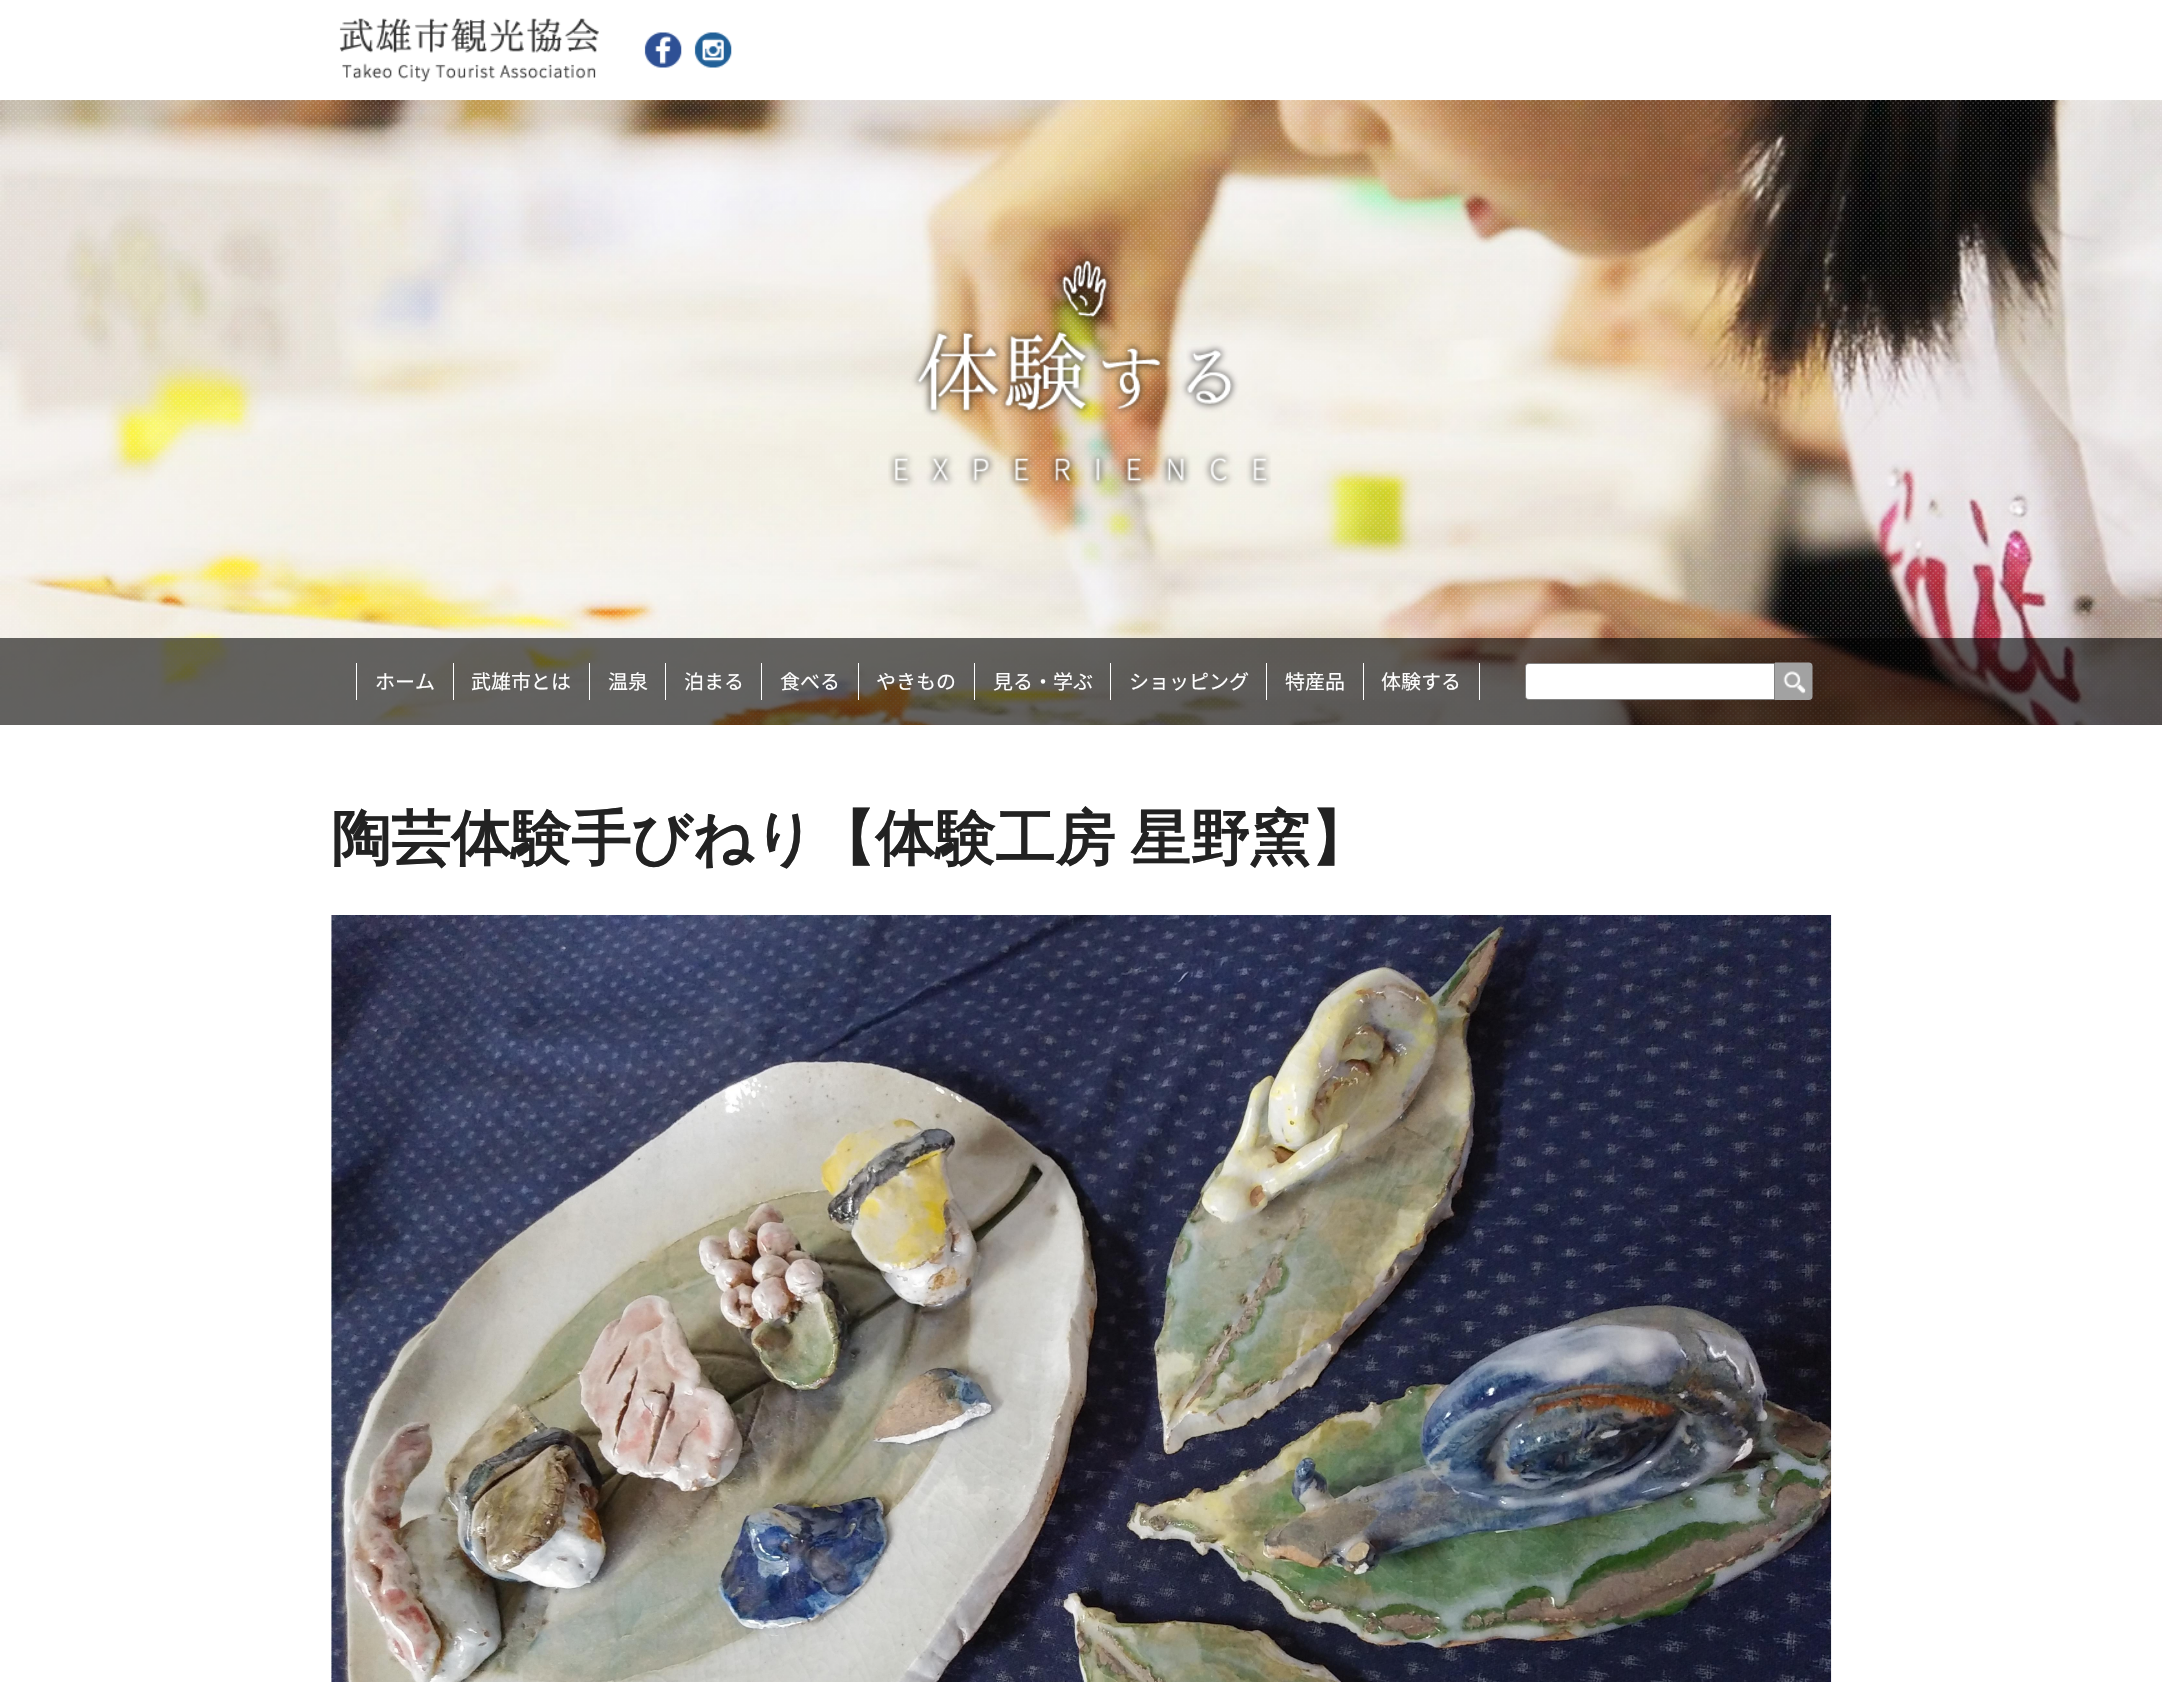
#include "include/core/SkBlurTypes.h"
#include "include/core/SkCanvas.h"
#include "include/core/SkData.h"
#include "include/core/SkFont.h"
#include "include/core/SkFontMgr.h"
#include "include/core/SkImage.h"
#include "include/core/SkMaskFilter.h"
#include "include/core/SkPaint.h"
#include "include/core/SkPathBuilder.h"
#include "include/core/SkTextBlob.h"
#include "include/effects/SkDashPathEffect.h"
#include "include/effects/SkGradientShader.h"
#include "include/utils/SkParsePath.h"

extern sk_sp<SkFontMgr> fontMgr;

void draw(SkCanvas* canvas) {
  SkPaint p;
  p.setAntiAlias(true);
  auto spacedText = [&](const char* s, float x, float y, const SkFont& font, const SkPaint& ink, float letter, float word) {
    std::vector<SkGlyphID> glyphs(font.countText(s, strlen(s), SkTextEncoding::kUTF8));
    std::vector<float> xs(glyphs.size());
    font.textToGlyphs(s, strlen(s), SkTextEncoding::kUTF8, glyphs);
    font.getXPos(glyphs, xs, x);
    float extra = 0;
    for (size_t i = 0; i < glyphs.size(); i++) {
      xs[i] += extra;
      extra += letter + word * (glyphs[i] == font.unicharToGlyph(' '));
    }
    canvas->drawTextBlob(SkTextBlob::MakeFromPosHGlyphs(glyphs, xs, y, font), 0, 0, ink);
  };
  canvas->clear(SK_ColorWHITE);
  canvas->drawImageRect(SkImages::DeferredFromEncodedData(SkData::MakeFromFileName("images/1.png")), SkRect::MakeLTRB(339, 18, 599, 82), SkSamplingOptions());
  canvas->drawImageRect(SkImages::DeferredFromEncodedData(SkData::MakeFromFileName("images/2.png")), SkRect::MakeLTRB(644, 32, 682, 68), SkSamplingOptions());
  canvas->drawImageRect(SkImages::DeferredFromEncodedData(SkData::MakeFromFileName("images/3.png")), SkRect::MakeLTRB(694, 32, 732, 68), SkSamplingOptions());
  canvas->drawImageRect(SkImages::DeferredFromEncodedData(SkData::MakeFromFileName("images/5.png")), SkRect::MakeLTRB(0, 100, 2162, 725), SkSamplingOptions());
  canvas->drawImageRect(SkImages::DeferredFromEncodedData(SkData::MakeFromFileName("images/4.png")), SkRect::MakeLTRB(0, 100, 2162, 724), SkSamplingOptions());
  canvas->drawImageRect(SkImages::DeferredFromEncodedData(SkData::MakeFromFileName("images/6.png")), SkRect::MakeLTRB(888, 253, 1271, 488), SkSamplingOptions());
  p.setColor(SkColorSetARGB(153, 0, 0, 0));
  canvas->drawRect(SkRect::MakeLTRB(0, 638, 2162, 725), p);
  p.setColor(SK_ColorWHITE);
  canvas->drawRect(SkRect::MakeLTRB(453, 663, 454, 700), p);
  canvas->drawRect(SkRect::MakeLTRB(356, 663, 357, 700), p);
  canvas->drawRect(SkRect::MakeLTRB(589, 663, 590, 700), p);
  canvas->drawRect(SkRect::MakeLTRB(665, 663, 666, 700), p);
  canvas->drawRect(SkRect::MakeLTRB(761, 663, 762, 700), p);
  canvas->drawRect(SkRect::MakeLTRB(858, 663, 859, 700), p);
  canvas->drawRect(SkRect::MakeLTRB(974, 663, 975, 700), p);
  canvas->drawRect(SkRect::MakeLTRB(1110, 663, 1111, 700), p);
  canvas->drawRect(SkRect::MakeLTRB(1266, 663, 1267, 700), p);
  canvas->drawRect(SkRect::MakeLTRB(1363, 663, 1364, 700), p);
  canvas->drawRect(SkRect::MakeLTRB(1479, 663, 1480, 700), p);
  canvas->drawPath(SkPathBuilder().moveTo(1529, 663.5f).lineTo(1774.5f, 663.5f).lineTo(1774.5f, 699.5f).lineTo(1529, 699.5f).cubicTo(1527, 699.5f, 1525.5f, 698, 1525.5f, 696).lineTo(1525.5f, 667).cubicTo(1525.5f, 665, 1527, 663.5f, 1529, 663.5f).close().detach(), p);
  p.setStyle(SkPaint::kStroke_Style);
  p.setStrokeWidth(1);
  p.setColor(SkColorSetRGB(130, 130, 130));
  canvas->drawPath(SkPathBuilder().moveTo(1529, 663.5f).lineTo(1774.5f, 663.5f).lineTo(1774.5f, 699.5f).lineTo(1529, 699.5f).cubicTo(1527, 699.5f, 1525.5f, 698, 1525.5f, 696).lineTo(1525.5f, 667).cubicTo(1525.5f, 665, 1527, 663.5f, 1529, 663.5f).close().detach(), p);
  canvas->drawImageRect(SkImages::DeferredFromEncodedData(SkData::MakeFromFileName("images/7.png")), SkRect::MakeLTRB(1775, 662, 1813, 700), SkSamplingOptions());
  canvas->drawImageRect(SkImages::DeferredFromEncodedData(SkData::MakeFromFileName("images/8.png")), SkRect::MakeLTRB(331, 915, 1832, 1682), SkSamplingOptions());
  SkFont font1(fontMgr->matchFamilyStyle("Noto Sans JP", SkFontStyle::Normal()), 20);
  font1.setSubpixel(true);
  p.setStyle(SkPaint::kFill_Style);
  p.setColor(SK_ColorWHITE);
  canvas->drawString("ホーム", 375, 689, font1, p);
  canvas->drawString("武雄市とは", 471, 689, font1, p);
  canvas->drawString("温泉", 608, 689, font1, p);
  canvas->drawString("泊まる", 684, 689, font1, p);
  canvas->drawString("食べる", 780, 689, font1, p);
  canvas->drawString("やきもの", 876, 689, font1, p);
  canvas->drawString("見る・学ぶ", 993, 689, font1, p);
  canvas->drawString("ショッピング", 1129, 689, font1, p);
  canvas->drawString("特産品", 1285, 689, font1, p);
  canvas->drawString("体験する", 1381, 689, font1, p);
  SkFont font2(fontMgr->matchFamilyStyle("WenQuanYi Zen Hei", SkFontStyle::Bold()), 60);
  font2.setSubpixel(true);
  p.setColor(SkColorSetRGB(34, 34, 34));
  spacedText("陶芸体験手びねり【体験工房 星野窯】", 331, 859, font2, p, 0, -3);
}
